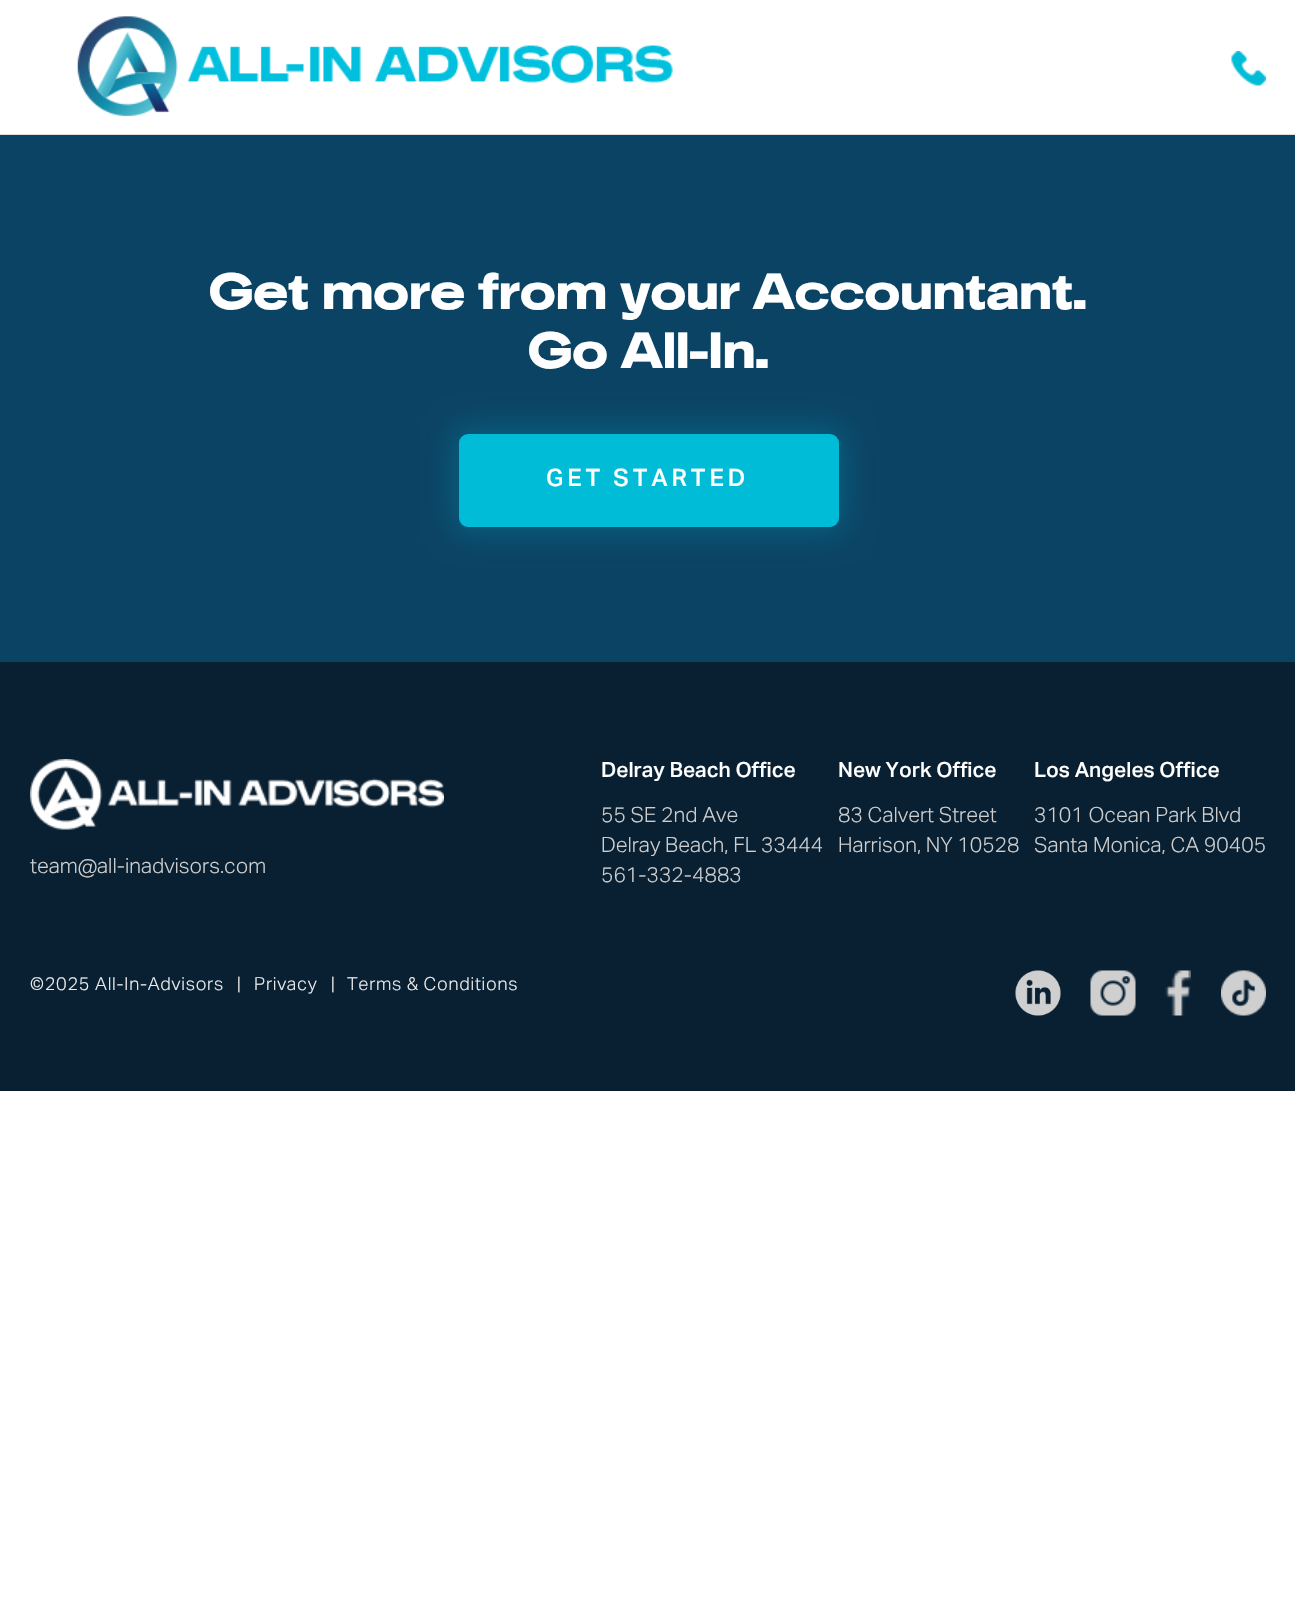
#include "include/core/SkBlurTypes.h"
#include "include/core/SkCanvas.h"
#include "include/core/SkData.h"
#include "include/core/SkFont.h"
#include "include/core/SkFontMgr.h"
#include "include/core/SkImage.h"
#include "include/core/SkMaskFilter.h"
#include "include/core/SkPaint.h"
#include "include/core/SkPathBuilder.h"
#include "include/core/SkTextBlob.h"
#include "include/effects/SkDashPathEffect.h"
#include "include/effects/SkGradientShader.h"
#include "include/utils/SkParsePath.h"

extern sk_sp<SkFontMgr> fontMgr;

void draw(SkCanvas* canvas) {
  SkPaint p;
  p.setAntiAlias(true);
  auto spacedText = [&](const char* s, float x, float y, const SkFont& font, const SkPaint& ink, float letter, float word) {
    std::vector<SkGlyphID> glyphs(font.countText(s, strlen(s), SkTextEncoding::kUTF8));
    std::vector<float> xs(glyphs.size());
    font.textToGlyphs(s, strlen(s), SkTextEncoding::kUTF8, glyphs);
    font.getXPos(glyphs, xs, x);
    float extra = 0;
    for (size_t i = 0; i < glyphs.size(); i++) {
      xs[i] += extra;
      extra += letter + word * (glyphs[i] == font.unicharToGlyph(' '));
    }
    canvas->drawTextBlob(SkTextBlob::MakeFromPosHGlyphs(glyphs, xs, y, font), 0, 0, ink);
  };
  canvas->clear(SK_ColorWHITE);
  p.setColor(SkColorSetRGB(220, 220, 220));
  canvas->drawRect(SkRect::MakeLTRB(0, 134, 1295, 135), p);
  canvas->drawImageRect(SkImages::DeferredFromEncodedData(SkData::MakeFromFileName("images/1.png")), SkRect::MakeLTRB(77, 16, 673, 117), SkSamplingOptions());
  canvas->drawImageRect(SkImages::DeferredFromEncodedData(SkData::MakeFromFileName("images/2.png")), SkRect::MakeLTRB(1231, 51, 1266, 86), SkSamplingOptions());
  p.setColor(SkColorSetRGB(11, 67, 100));
  canvas->drawRect(SkRect::MakeLTRB(0, 135, 1295, 662), p);
  p.setColor(SkColorSetARGB(56, 0, 188, 215));
  p.setMaskFilter(SkMaskFilter::MakeBlur(kNormal_SkBlurStyle, 14.5f));
  canvas->drawRoundRect(SkRect::MakeLTRB(452, 426, 846, 534), 17, 17, p);
  p.setMaskFilter(nullptr);
  p.setColor(SkColorSetRGB(0, 188, 215));
  canvas->drawRoundRect(SkRect::MakeLTRB(459, 434, 839, 527), 9, 9, p);
  p.setColor(SkColorSetRGB(9, 32, 50));
  canvas->drawRect(SkRect::MakeLTRB(0, 662, 1295, 1091), p);
  canvas->drawImageRect(SkImages::DeferredFromEncodedData(SkData::MakeFromFileName("images/3.png")), SkRect::MakeLTRB(30, 759, 444, 830), SkSamplingOptions());
  canvas->drawImageRect(SkImages::DeferredFromEncodedData(SkData::MakeFromFileName("images/4.png")), SkRect::MakeLTRB(1015, 970, 1061, 1016), SkSamplingOptions());
  canvas->drawImageRect(SkImages::DeferredFromEncodedData(SkData::MakeFromFileName("images/5.png")), SkRect::MakeLTRB(1090, 970, 1136, 1016), SkSamplingOptions());
  canvas->drawImageRect(SkImages::DeferredFromEncodedData(SkData::MakeFromFileName("images/6.png")), SkRect::MakeLTRB(1165, 970, 1191, 1016), SkSamplingOptions());
  canvas->drawImageRect(SkImages::DeferredFromEncodedData(SkData::MakeFromFileName("images/7.png")), SkRect::MakeLTRB(1221, 970, 1266, 1016), SkSamplingOptions());
  SkFont font1(fontMgr->matchFamilyStyle("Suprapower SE", SkFontStyle(900, SkFontStyle::kNormal_Width, SkFontStyle::kUpright_Slant)), 49.5f);
  font1.setSubpixel(true);
  p.setColor(SK_ColorWHITE);
  canvas->drawString("Get more from your Accountant.", 209, 309, font1, p);
  canvas->drawString("Go All-In.", 528, 368, font1, p);
  SkFont font2(fontMgr->matchFamilyStyle("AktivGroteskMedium", SkFontStyle(500, SkFontStyle::kNormal_Width, SkFontStyle::kUpright_Slant)), 24);
  font2.setSubpixel(true);
  spacedText("GET STARTED", 546, 486, font2, p, 3.9f, 0);
  SkFont font3(fontMgr->matchFamilyStyle("AktivGroteskMedium", SkFontStyle(500, SkFontStyle::kNormal_Width, SkFontStyle::kUpright_Slant)), 21);
  font3.setSubpixel(true);
  canvas->drawString("Delray Beach Office", 601, 777, font3, p);
  SkFont font4(fontMgr->matchFamilyStyle("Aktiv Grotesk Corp", SkFontStyle(300, SkFontStyle::kNormal_Width, SkFontStyle::kUpright_Slant)), 21);
  font4.setSubpixel(true);
  p.setColor(SkColorSetRGB(207, 207, 207));
  canvas->drawString("55 SE 2nd Ave", 601, 822, font4, p);
  canvas->drawString("Delray Beach, FL 33444", 601, 852, font4, p);
  canvas->drawString("561-332-4883", 601, 882, font4, p);
  p.setColor(SK_ColorWHITE);
  canvas->drawString("New York Office", 838, 777, font3, p);
  p.setColor(SkColorSetRGB(207, 207, 207));
  canvas->drawString("83 Calvert Street", 838, 822, font4, p);
  canvas->drawString("Harrison, NY 10528", 838, 852, font4, p);
  p.setColor(SK_ColorWHITE);
  canvas->drawString("Los Angeles Office", 1034, 777, font3, p);
  p.setColor(SkColorSetRGB(207, 207, 207));
  canvas->drawString("3101 Ocean Park Blvd", 1034, 822, font4, p);
  canvas->drawString("Santa Monica, CA 90405", 1034, 852, font4, p);
  canvas->drawString("team@all-inadvisors.com", 30, 873, font4, p);
  SkFont font5(fontMgr->matchFamilyStyle("Aktiv Grotesk Corp", SkFontStyle(300, SkFontStyle::kNormal_Width, SkFontStyle::kUpright_Slant)), 18);
  font5.setSubpixel(true);
  p.setColor(SkColorSetRGB(238, 238, 238));
  spacedText("©2025 All-In-Advisors", 30, 990, font5, p, 0.75f, 0);
  spacedText("|", 237, 990, font5, p, 0.75f, 0);
  spacedText("Privacy", 254, 990, font5, p, 0.75f, 0);
  spacedText("|", 331, 990, font5, p, 0.75f, 0);
  spacedText("Terms & Conditions", 347, 990, font5, p, 0.75f, 0);
}
